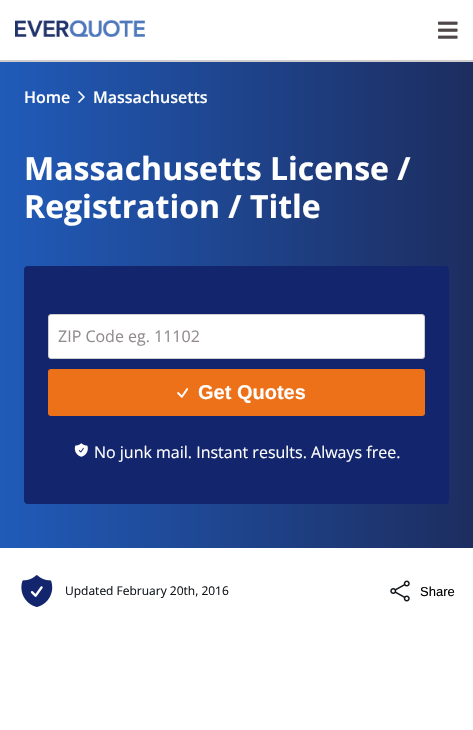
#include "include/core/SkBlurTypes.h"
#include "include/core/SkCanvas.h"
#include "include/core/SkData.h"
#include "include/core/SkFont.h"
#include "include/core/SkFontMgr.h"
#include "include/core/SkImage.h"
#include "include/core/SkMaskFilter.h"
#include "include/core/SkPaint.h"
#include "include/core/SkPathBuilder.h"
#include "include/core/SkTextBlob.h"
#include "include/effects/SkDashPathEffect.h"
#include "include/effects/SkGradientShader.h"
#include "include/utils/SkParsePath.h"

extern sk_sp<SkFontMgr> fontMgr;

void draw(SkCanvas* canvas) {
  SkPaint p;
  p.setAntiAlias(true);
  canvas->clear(SK_ColorWHITE);
  p.setColor(SkColorSetRGB(206, 204, 204));
  canvas->drawRect(SkRect::MakeLTRB(0, 60, 473, 62), p);
  canvas->drawImageRect(SkImages::DeferredFromEncodedData(SkData::MakeFromFileName("images/1.png")), SkRect::MakeLTRB(15, 19, 145, 37), SkSamplingOptions());
  canvas->drawImageRect(SkImages::DeferredFromEncodedData(SkData::MakeFromFileName("images/2.png")), SkRect::MakeLTRB(438, 21, 458, 39), SkSamplingOptions());
  {
    const SkColor colors[] = {SkColorSetRGB(32, 91, 185), SkColorSetRGB(29, 45, 96)};
    const float stops[] = {0, 1};
    const SkPoint ends[] = {{0, 305}, {473, 305}};
    p.setShader(SkGradientShader::MakeLinear(ends, colors, stops, 2, SkTileMode::kClamp));
    p.setAlpha(255);
  }
  canvas->drawRect(SkRect::MakeLTRB(0, 62, 473, 548), p);
  p.setStyle(SkPaint::kStroke_Style);
  p.setStrokeWidth(1.7f);
  p.setStrokeCap(SkPaint::kRound_Cap);
  p.setStrokeJoin(SkPaint::kRound_Join);
  p.setShader(nullptr);
  p.setColor(SK_ColorWHITE);
  canvas->drawPath(SkPathBuilder().moveTo(79, 102).lineTo(84, 97).lineTo(79, 92).detach(), p);
  p.setStyle(SkPaint::kFill_Style);
  p.setColor(SkColorSetRGB(18, 37, 109));
  canvas->drawRoundRect(SkRect::MakeLTRB(24, 266, 449, 504), 4, 4, p);
  p.setColor(SK_ColorWHITE);
  canvas->drawRoundRect(SkRect::MakeLTRB(48.5f, 314.5f, 424.5f, 358.5f), 2.5f, 2.5f, p);
  p.setStyle(SkPaint::kStroke_Style);
  p.setStrokeWidth(1);
  p.setStrokeCap(SkPaint::kButt_Cap);
  p.setStrokeJoin(SkPaint::kMiter_Join);
  p.setColor(SkColorSetRGB(206, 204, 204));
  canvas->drawRoundRect(SkRect::MakeLTRB(48.5f, 314.5f, 424.5f, 358.5f), 2.5f, 2.5f, p);
  p.setStyle(SkPaint::kFill_Style);
  p.setColor(SkColorSetRGB(237, 113, 25));
  canvas->drawRoundRect(SkRect::MakeLTRB(48, 369, 425, 416), 3, 3, p);
  canvas->drawImageRect(SkImages::DeferredFromEncodedData(SkData::MakeFromFileName("images/3.png")), SkRect::MakeLTRB(177, 388, 188, 398), SkSamplingOptions());
  canvas->drawImageRect(SkImages::DeferredFromEncodedData(SkData::MakeFromFileName("images/4.png")), SkRect::MakeLTRB(74, 443, 88, 457), SkSamplingOptions());
  canvas->drawImageRect(SkImages::DeferredFromEncodedData(SkData::MakeFromFileName("images/5.png")), SkRect::MakeLTRB(21, 575, 53, 607), SkSamplingOptions());
  canvas->drawImageRect(SkImages::DeferredFromEncodedData(SkData::MakeFromFileName("images/6.png")), SkRect::MakeLTRB(390, 580, 410, 602), SkSamplingOptions());
  SkFont font1(fontMgr->matchFamilyStyle("Open Sans", SkFontStyle(600, SkFontStyle::kNormal_Width, SkFontStyle::kUpright_Slant)), 16);
  font1.setSubpixel(true);
  p.setColor(SK_ColorWHITE);
  canvas->drawString("Home", 24, 103, font1, p);
  canvas->drawString("Massachusetts", 93, 103, font1, p);
  SkFont font2(fontMgr->matchFamilyStyle("Open Sans", SkFontStyle::Bold()), 32);
  font2.setSubpixel(true);
  canvas->drawString("Massachusetts License /", 24, 180, font2, p);
  canvas->drawString("Registration / Title", 24, 218, font2, p);
  SkFont font3(fontMgr->matchFamilyStyle("Open Sans", SkFontStyle::Normal()), 16);
  font3.setSubpixel(true);
  p.setColor(SkColorSetRGB(146, 140, 140));
  canvas->drawString("ZIP Code eg. 11102", 58, 342, font3, p);
  SkFont font4(fontMgr->matchFamilyStyle("Liberation Sans", SkFontStyle::Bold()), 20);
  font4.setSubpixel(true);
  p.setColor(SK_ColorWHITE);
  canvas->drawString("Get Quotes", 198, 399, font4, p);
  canvas->drawString("No junk mail. Instant results. Always free.", 94, 458, font3, p);
  SkFont font5(fontMgr->matchFamilyStyle("Open Sans", SkFontStyle::Normal()), 12);
  font5.setSubpixel(true);
  p.setColor(SkColorSetRGB(18, 22, 26));
  canvas->drawString("Updated February 20th, 2016", 65, 595, font5, p);
  SkFont font6(fontMgr->matchFamilyStyle("Liberation Sans", SkFontStyle::Normal()), 13);
  font6.setSubpixel(true);
  p.setColor(SK_ColorBLACK);
  canvas->drawString("Share", 420, 596, font6, p);
}
